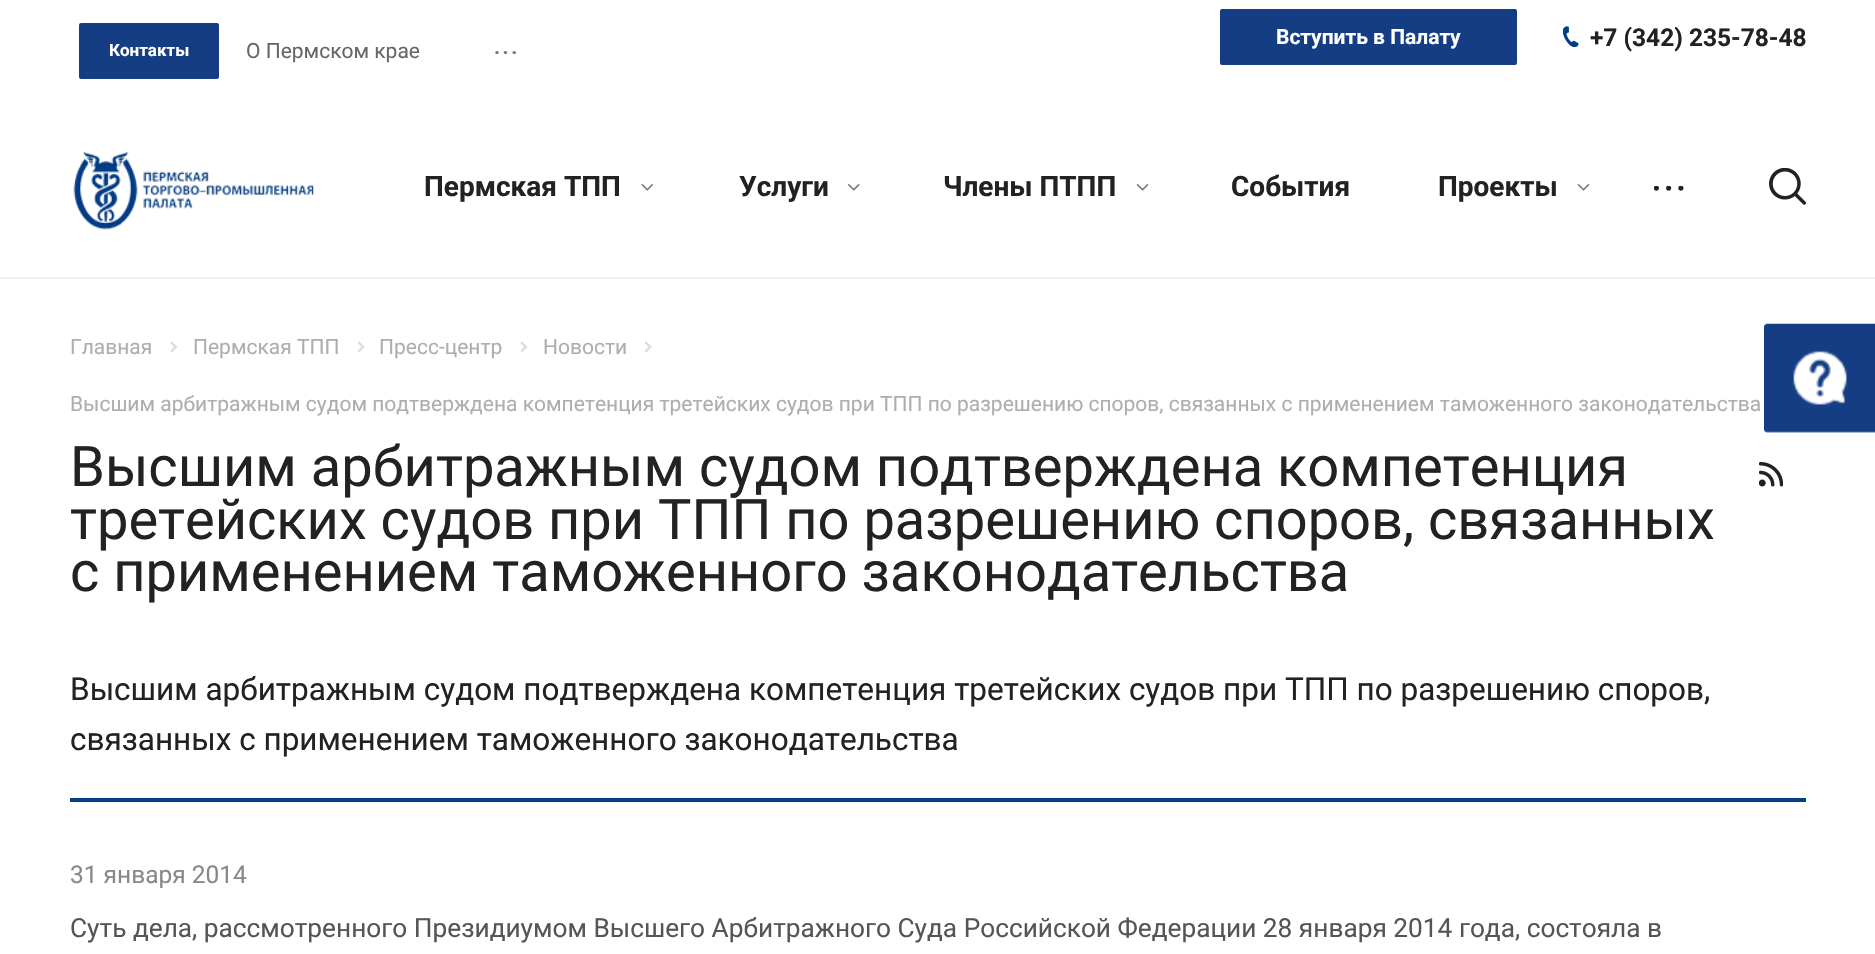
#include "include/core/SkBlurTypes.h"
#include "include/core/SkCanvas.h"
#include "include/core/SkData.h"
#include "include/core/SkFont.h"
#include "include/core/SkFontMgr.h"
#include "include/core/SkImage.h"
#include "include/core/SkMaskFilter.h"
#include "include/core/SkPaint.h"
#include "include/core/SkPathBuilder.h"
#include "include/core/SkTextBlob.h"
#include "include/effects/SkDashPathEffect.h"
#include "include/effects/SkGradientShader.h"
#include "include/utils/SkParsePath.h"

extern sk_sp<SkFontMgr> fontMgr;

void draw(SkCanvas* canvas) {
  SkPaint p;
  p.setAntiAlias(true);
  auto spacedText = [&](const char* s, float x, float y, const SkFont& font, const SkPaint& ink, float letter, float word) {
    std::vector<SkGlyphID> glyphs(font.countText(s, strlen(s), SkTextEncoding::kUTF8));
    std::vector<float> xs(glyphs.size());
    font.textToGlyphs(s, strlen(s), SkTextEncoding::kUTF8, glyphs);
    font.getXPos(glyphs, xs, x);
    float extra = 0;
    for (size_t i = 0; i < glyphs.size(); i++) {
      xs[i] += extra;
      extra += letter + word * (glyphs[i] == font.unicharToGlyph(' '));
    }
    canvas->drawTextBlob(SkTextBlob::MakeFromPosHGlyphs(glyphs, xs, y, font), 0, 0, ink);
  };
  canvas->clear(SK_ColorWHITE);
  p.setColor(SkColorSetRGB(21, 61, 131));
  canvas->drawRoundRect(SkRect::MakeLTRB(1221, 10, 1516, 64), 1, 1, p);
  p.setStyle(SkPaint::kStroke_Style);
  p.setStrokeWidth(2);
  canvas->drawRoundRect(SkRect::MakeLTRB(1221, 10, 1516, 64), 1, 1, p);
  canvas->drawImageRect(SkImages::DeferredFromEncodedData(SkData::MakeFromFileName("images/1.png")), SkRect::MakeLTRB(1563, 26, 1579, 47), SkSamplingOptions());
  p.setStyle(SkPaint::kFill_Style);
  canvas->drawRoundRect(SkRect::MakeLTRB(80, 24, 218, 78), 1, 1, p);
  p.setStyle(SkPaint::kStroke_Style);
  canvas->drawRoundRect(SkRect::MakeLTRB(80, 24, 218, 78), 1, 1, p);
  canvas->drawImageRect(SkImages::DeferredFromEncodedData(SkData::MakeFromFileName("images/2.png")), SkRect::MakeLTRB(73, 152, 314, 230), SkSamplingOptions());
  canvas->drawImageRect(SkImages::DeferredFromEncodedData(SkData::MakeFromFileName("images/3.png")), SkRect::MakeLTRB(641, 184, 653, 191), SkSamplingOptions());
  canvas->drawImageRect(SkImages::DeferredFromEncodedData(SkData::MakeFromFileName("images/4.png")), SkRect::MakeLTRB(848, 184, 860, 191), SkSamplingOptions());
  canvas->drawImageRect(SkImages::DeferredFromEncodedData(SkData::MakeFromFileName("images/5.png")), SkRect::MakeLTRB(1136, 184, 1149, 191), SkSamplingOptions());
  canvas->drawImageRect(SkImages::DeferredFromEncodedData(SkData::MakeFromFileName("images/5.png")), SkRect::MakeLTRB(1577, 184, 1590, 191), SkSamplingOptions());
  canvas->drawImageRect(SkImages::DeferredFromEncodedData(SkData::MakeFromFileName("images/6.png")), SkRect::MakeLTRB(1654, 186, 1684, 191), SkSamplingOptions());
  canvas->drawImageRect(SkImages::DeferredFromEncodedData(SkData::MakeFromFileName("images/7.png")), SkRect::MakeLTRB(1769, 168, 1806, 205), SkSamplingOptions());
  p.setStyle(SkPaint::kFill_Style);
  p.setColor(SkColorSetRGB(240, 240, 240));
  canvas->drawRect(SkRect::MakeLTRB(0, 277, 1875, 279), p);
  canvas->drawImageRect(SkImages::DeferredFromEncodedData(SkData::MakeFromFileName("images/8.png")), SkRect::MakeLTRB(170, 341, 178, 353), SkSamplingOptions());
  canvas->drawImageRect(SkImages::DeferredFromEncodedData(SkData::MakeFromFileName("images/9.png")), SkRect::MakeLTRB(357, 341, 365, 353), SkSamplingOptions());
  canvas->drawImageRect(SkImages::DeferredFromEncodedData(SkData::MakeFromFileName("images/8.png")), SkRect::MakeLTRB(520, 341, 528, 353), SkSamplingOptions());
  canvas->drawImageRect(SkImages::DeferredFromEncodedData(SkData::MakeFromFileName("images/9.png")), SkRect::MakeLTRB(644, 341, 652, 353), SkSamplingOptions());
  canvas->drawImageRect(SkImages::DeferredFromEncodedData(SkData::MakeFromFileName("images/10.png")), SkRect::MakeLTRB(1759, 462, 1783, 487), SkSamplingOptions());
  p.setColor(SkColorSetRGB(3, 61, 134));
  canvas->drawRect(SkRect::MakeLTRB(70, 798, 1806, 802), p);
  canvas->drawImageRect(SkImages::DeferredFromEncodedData(SkData::MakeFromFileName("images/11.png")), SkRect::MakeLTRB(1764, 323, 1875, 433), SkSamplingOptions());
  SkFont font1(fontMgr->matchFamilyStyle("Roboto", SkFontStyle::Bold()), 21);
  font1.setSubpixel(true);
  p.setColor(SK_ColorWHITE);
  canvas->drawString("Вступить в Палату", 1276, 44, font1, p);
  SkFont font2(fontMgr->matchFamilyStyle("Roboto", SkFontStyle::Bold()), 24.5f);
  font2.setSubpixel(true);
  p.setColor(SkColorSetRGB(34, 34, 34));
  canvas->drawString("+7 (342) 235-78-48", 1590, 46, font2, p);
  SkFont font3(fontMgr->matchFamilyStyle("Roboto", SkFontStyle::Bold()), 17);
  font3.setSubpixel(true);
  p.setColor(SK_ColorWHITE);
  canvas->drawString("Контакты", 109, 56, font3, p);
  SkFont font4(fontMgr->matchFamilyStyle("Roboto", SkFontStyle::Normal()), 21);
  font4.setSubpixel(true);
  p.setColor(SkColorSetRGB(102, 102, 102));
  canvas->drawString("О Пермском крае", 246, 58, font4, p);
  p.setColor(SkColorSetRGB(119, 119, 119));
  spacedText("...", 494, 54, font1, p, 2.5f, 0);
  SkFont font5(fontMgr->matchFamilyStyle("Roboto", SkFontStyle::Bold()), 28);
  font5.setSubpixel(true);
  p.setColor(SkColorSetRGB(34, 34, 34));
  canvas->drawString("Пермская ТПП", 424, 196, font5, p);
  canvas->drawString("Услуги", 739, 196, font5, p);
  canvas->drawString("Члены ПТПП", 943, 196, font5, p);
  canvas->drawString("События", 1231, 196, font5, p);
  canvas->drawString("Проекты", 1438, 196, font5, p);
  p.setColor(SkColorSetRGB(174, 174, 174));
  canvas->drawString("Главная", 70, 354, font4, p);
  canvas->drawString("Пермская ТПП", 193, 354, font4, p);
  canvas->drawString("Пресс-центр", 379, 354, font4, p);
  canvas->drawString("Новости", 543, 354, font4, p);
  canvas->drawString("Высшим арбитражным судом подтверждена компетенция третейских судов при ТПП по разрешению споров, связанных с применением таможенного законодательства", 70, 411, font4, p);
  SkFont font6(fontMgr->matchFamilyStyle("Roboto", SkFontStyle::Normal()), 56);
  font6.setSubpixel(true);
  p.setColor(SkColorSetRGB(34, 34, 34));
  canvas->drawString("Высшим арбитражным судом подтверждена компетенция", 70, 486, font6, p);
  canvas->drawString("третейских судов при ТПП по разрешению споров, связанных", 70, 539, font6, p);
  canvas->drawString("с применением таможенного законодательства", 70, 591, font6, p);
  SkFont font7(fontMgr->matchFamilyStyle("Roboto", SkFontStyle::Normal()), 31.5f);
  font7.setSubpixel(true);
  canvas->drawString("Высшим арбитражным судом подтверждена компетенция третейских судов при ТПП по разрешению споров,", 70, 700, font7, p);
  canvas->drawString("связанных с применением таможенного законодательства", 70, 750, font7, p);
  SkFont font8(fontMgr->matchFamilyStyle("Roboto", SkFontStyle::Normal()), 24.5f);
  font8.setSubpixel(true);
  p.setColor(SkColorSetRGB(136, 136, 136));
  canvas->drawString("31 января 2014", 70, 883, font8, p);
  SkFont font9(fontMgr->matchFamilyStyle("Roboto", SkFontStyle::Normal()), 26.25f);
  font9.setSubpixel(true);
  p.setColor(SkColorSetRGB(85, 85, 85));
  canvas->drawString("Суть дела, рассмотренного Президиумом Высшего Арбитражного Суда Российской Федерации 28 января 2014 года, состояла в", 70, 937, font9, p);
}
